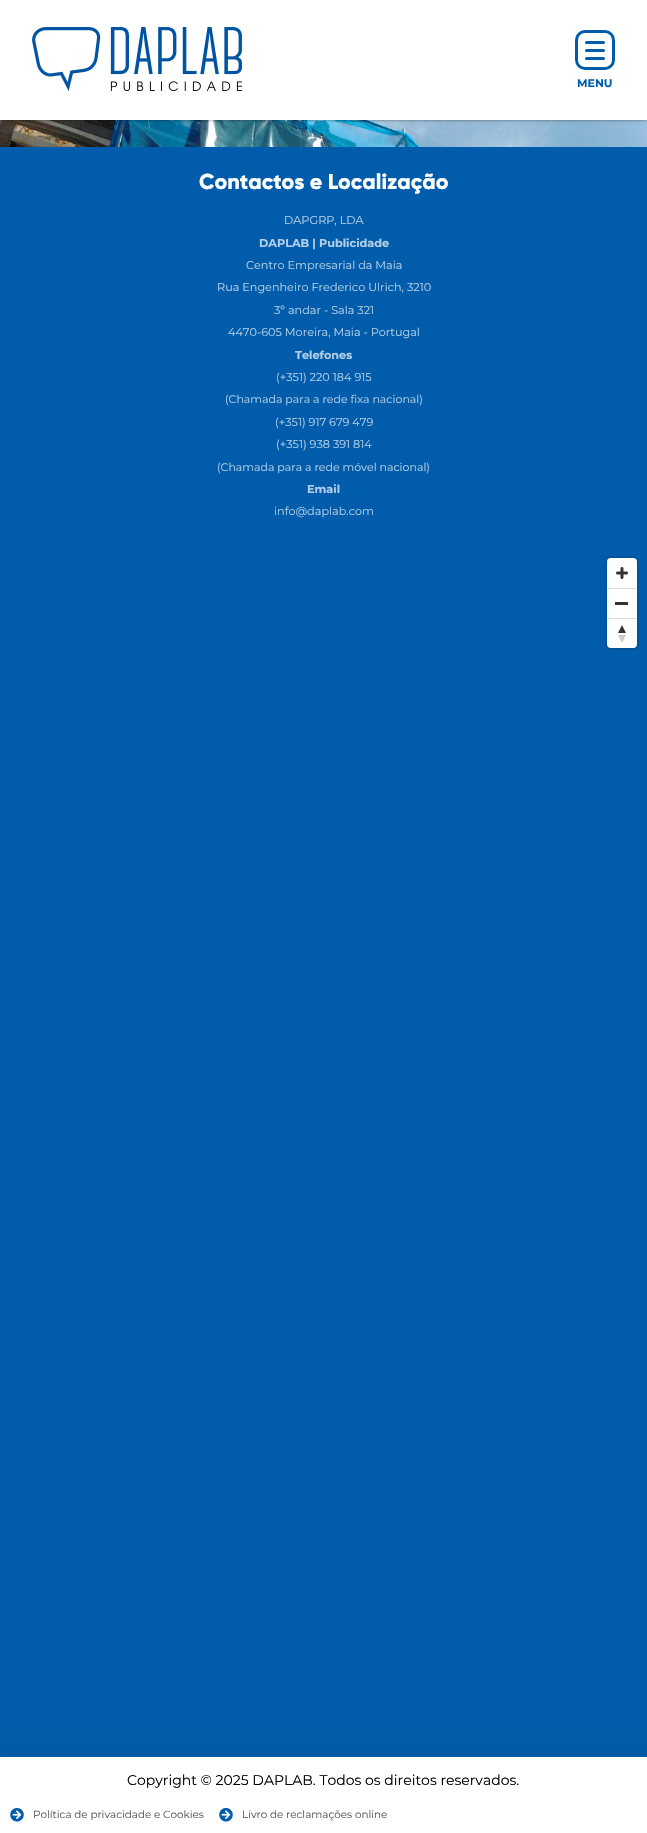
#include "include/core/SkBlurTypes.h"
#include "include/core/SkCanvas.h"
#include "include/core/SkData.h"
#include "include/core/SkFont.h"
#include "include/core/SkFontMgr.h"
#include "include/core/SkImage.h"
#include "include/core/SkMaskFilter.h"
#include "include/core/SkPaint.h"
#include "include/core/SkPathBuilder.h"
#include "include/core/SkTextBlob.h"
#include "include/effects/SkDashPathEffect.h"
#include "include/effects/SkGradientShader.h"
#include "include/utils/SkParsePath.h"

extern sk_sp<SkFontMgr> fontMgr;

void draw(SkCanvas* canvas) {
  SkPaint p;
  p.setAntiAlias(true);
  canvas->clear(SK_ColorWHITE);
  canvas->drawImageRect(SkImages::DeferredFromEncodedData(SkData::MakeFromFileName("images/2.png")), SkRect::MakeLTRB(0, 120, 647, 147), SkSamplingOptions());
  p.setColor(SkColorSetARGB(128, 0, 0, 0));
  p.setMaskFilter(SkMaskFilter::MakeBlur(kNormal_SkBlurStyle, 1.5f));
  canvas->drawRect(SkRect::MakeLTRB(0, 0, 647, 120), p);
  p.setMaskFilter(nullptr);
  p.setColor(SK_ColorWHITE);
  canvas->drawRect(SkRect::MakeLTRB(0, 0, 647, 120), p);
  canvas->drawImageRect(SkImages::DeferredFromEncodedData(SkData::MakeFromFileName("images/1.png")), SkRect::MakeLTRB(32, 27, 242, 91), SkSamplingOptions());
  p.setStyle(SkPaint::kStroke_Style);
  p.setStrokeWidth(3);
  p.setColor(SkColorSetRGB(1, 93, 171));
  canvas->drawRoundRect(SkRect::MakeLTRB(576.5f, 31.5f, 613.5f, 68.5f), 8.5f, 8.5f, p);
  p.setStyle(SkPaint::kFill_Style);
  canvas->drawRoundRect(SkRect::MakeLTRB(585, 41, 605, 44), 1.5f, 1.5f, p);
  canvas->drawRoundRect(SkRect::MakeLTRB(585, 49, 605, 52), 1.5f, 1.5f, p);
  canvas->drawRoundRect(SkRect::MakeLTRB(585, 57, 605, 60), 1.5f, 1.5f, p);
  canvas->drawRect(SkRect::MakeLTRB(0, 147, 647, 1757), p);
  p.setStyle(SkPaint::kStroke_Style);
  p.setStrokeWidth(2);
  p.setColor(SkColorSetRGB(1, 84, 154));
  canvas->drawRoundRect(SkRect::MakeLTRB(606, 557, 638, 649), 5, 5, p);
  p.setStyle(SkPaint::kFill_Style);
  p.setColor(SK_ColorWHITE);
  canvas->drawRoundRect(SkRect::MakeLTRB(607, 558, 637, 648), 4, 4, p);
  canvas->drawImageRect(SkImages::DeferredFromEncodedData(SkData::MakeFromFileName("images/3.png")), SkRect::MakeLTRB(616, 567, 628, 579), SkSamplingOptions());
  p.setColor(SkColorSetRGB(51, 51, 51));
  canvas->drawRect(SkRect::MakeLTRB(615, 602, 628, 605), p);
  p.setColor(SkColorSetRGB(221, 221, 221));
  canvas->drawRect(SkRect::MakeLTRB(607, 588, 637, 589), p);
  canvas->drawRect(SkRect::MakeLTRB(607, 618, 637, 619), p);
  canvas->drawImageRect(SkImages::DeferredFromEncodedData(SkData::MakeFromFileName("images/4.png")), SkRect::MakeLTRB(618, 625, 626, 643), SkSamplingOptions());
  p.setColor(SkColorSetARGB(51, 0, 0, 0));
  p.setMaskFilter(SkMaskFilter::MakeBlur(kNormal_SkBlurStyle, 11.5f));
  canvas->drawRect(SkRect::MakeLTRB(-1, 1762, 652, 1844), p);
  p.setMaskFilter(nullptr);
  p.setColor(SK_ColorWHITE);
  canvas->drawRect(SkRect::MakeLTRB(0, 1757, 647, 1833), p);
  canvas->drawImageRect(SkImages::DeferredFromEncodedData(SkData::MakeFromFileName("images/5.png")), SkRect::MakeLTRB(10, 1808, 24, 1822), SkSamplingOptions());
  canvas->drawImageRect(SkImages::DeferredFromEncodedData(SkData::MakeFromFileName("images/5.png")), SkRect::MakeLTRB(219, 1808, 233, 1822), SkSamplingOptions());
  SkFont font1(fontMgr->matchFamilyStyle("Montserrat", SkFontStyle::Bold()), 11);
  font1.setSubpixel(true);
  p.setColor(SkColorSetRGB(1, 93, 171));
  canvas->drawString("MENU", 577, 87, font1, p);
  SkFont font2(fontMgr->matchFamilyStyle("Gilroy", SkFontStyle(800, SkFontStyle::kNormal_Width, SkFontStyle::kUpright_Slant)), 21.6f);
  font2.setSubpixel(true);
  p.setColor(SK_ColorWHITE);
  canvas->drawString("Contactos e Localização", 199, 189, font2, p);
  SkFont font3(fontMgr->matchFamilyStyle("Montserrat", SkFontStyle::Normal()), 11.25f);
  font3.setSubpixel(true);
  p.setColor(SkColorSetRGB(179, 206, 230));
  canvas->drawString("DAPGRP, LDA", 284, 224, font3, p);
  SkFont font4(fontMgr->matchFamilyStyle("Montserrat", SkFontStyle::Bold()), 11.25f);
  font4.setSubpixel(true);
  canvas->drawString("DAPLAB | Publicidade", 259, 247, font4, p);
  canvas->drawString("Centro Empresarial da Maia", 246, 269, font3, p);
  canvas->drawString("Rua Engenheiro Frederico Ulrich, 3210", 217, 291, font3, p);
  canvas->drawString("3º andar - Sala 321", 274, 314, font3, p);
  canvas->drawString("4470-605 Moreira, Maia - Portugal", 228, 336, font3, p);
  canvas->drawString("Telefones", 295, 359, font4, p);
  canvas->drawString("(+351) 220 184 915", 276, 381, font3, p);
  SkFont font5(fontMgr->matchFamilyStyle("Montserrat", SkFontStyle::Normal()), 11);
  font5.setSubpixel(true);
  canvas->drawString("(Chamada para a rede fixa nacional)", 225, 403, font5, p);
  canvas->drawString("(+351) 917 679 479", 275, 426, font3, p);
  canvas->drawString("(+351) 938 391 814", 276, 448, font3, p);
  canvas->drawString("(Chamada para a rede móvel nacional)", 217, 471, font5, p);
  canvas->drawString("Email", 307, 493, font4, p);
  canvas->drawString("info@daplab.com", 274, 515, font3, p);
  SkFont font6(fontMgr->matchFamilyStyle("Montserrat", SkFontStyle::Normal()), 14);
  font6.setSubpixel(true);
  p.setColor(SK_ColorBLACK);
  canvas->drawString("Copyright © 2025 DAPLAB. Todos os direitos reservados.", 127, 1785, font6, p);
  SkFont font7(fontMgr->matchFamilyStyle("Montserrat", SkFontStyle::Normal()), 10.4f);
  font7.setSubpixel(true);
  p.setColor(SkColorSetRGB(84, 89, 95));
  canvas->drawString("Política de privacidade e Cookies", 33, 1818, font7, p);
  canvas->drawString("Livro de reclamações online", 242, 1818, font7, p);
}
